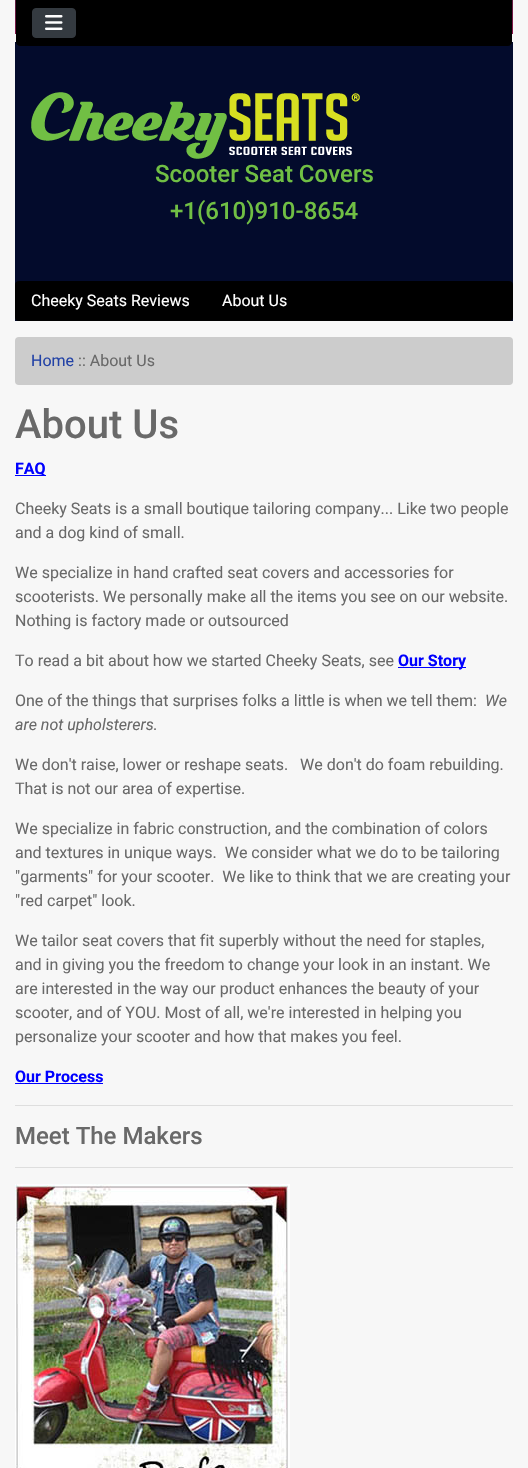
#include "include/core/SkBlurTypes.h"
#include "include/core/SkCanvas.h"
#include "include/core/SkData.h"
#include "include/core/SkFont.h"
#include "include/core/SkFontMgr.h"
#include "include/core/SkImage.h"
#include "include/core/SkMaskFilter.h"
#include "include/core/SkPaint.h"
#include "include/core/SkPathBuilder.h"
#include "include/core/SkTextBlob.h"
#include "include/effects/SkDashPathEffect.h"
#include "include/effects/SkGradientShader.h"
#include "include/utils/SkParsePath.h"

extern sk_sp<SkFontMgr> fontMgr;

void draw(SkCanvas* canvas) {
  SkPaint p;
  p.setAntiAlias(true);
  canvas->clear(SkColorSetRGB(247, 247, 247));
  canvas->drawImageRect(SkImages::DeferredFromEncodedData(SkData::MakeFromFileName("images/1.png")), SkRect::MakeLTRB(15, 0, 513, 34), SkSamplingOptions());
  p.setColor(SkColorSetRGB(3, 11, 44));
  canvas->drawRect(SkRect::MakeLTRB(15, 42, 513, 321), p);
  p.setColor(SK_ColorBLACK);
  canvas->drawPath(SkPathBuilder().moveTo(16, 0).lineTo(512, 0).lineTo(512, 42).cubicTo(512, 44, 510, 46, 508, 46).lineTo(20, 46).cubicTo(18, 46, 16, 44, 16, 42).close().detach(), p);
  p.setColor(SkColorSetRGB(52, 58, 64));
  canvas->drawRoundRect(SkRect::MakeLTRB(32.5f, 8.5f, 75.5f, 37.5f), 3.5f, 3.5f, p);
  p.setStyle(SkPaint::kStroke_Style);
  p.setStrokeWidth(1);
  canvas->drawRoundRect(SkRect::MakeLTRB(32.5f, 8.5f, 75.5f, 37.5f), 3.5f, 3.5f, p);
  canvas->drawImageRect(SkImages::DeferredFromEncodedData(SkData::MakeFromFileName("images/2.png")), SkRect::MakeLTRB(45, 15, 63, 30), SkSamplingOptions());
  canvas->drawImageRect(SkImages::DeferredFromEncodedData(SkData::MakeFromFileName("images/3.png")), SkRect::MakeLTRB(31, 92, 360, 159), SkSamplingOptions());
  p.setStyle(SkPaint::kFill_Style);
  p.setColor(SK_ColorBLACK);
  canvas->drawRoundRect(SkRect::MakeLTRB(15, 281, 513, 321), 4, 4, p);
  p.setColor(SkColorSetRGB(204, 204, 204));
  canvas->drawRoundRect(SkRect::MakeLTRB(15, 337, 513, 385), 4, 4, p);
  p.setColor(SkColorSetRGB(0, 0, 255));
  canvas->drawRect(SkRect::MakeLTRB(15, 475, 46, 476), p);
  canvas->drawRect(SkRect::MakeLTRB(398, 667, 466, 668), p);
  canvas->drawRect(SkRect::MakeLTRB(15, 1083, 103, 1084), p);
  p.setColor(SkColorSetRGB(222, 222, 222));
  canvas->drawRect(SkRect::MakeLTRB(15, 1105, 513, 1106), p);
  canvas->drawRect(SkRect::MakeLTRB(15, 1167, 513, 1168), p);
  canvas->drawImageRect(SkImages::DeferredFromEncodedData(SkData::MakeFromFileName("images/4.png")), SkRect::MakeLTRB(15, 1184, 290, 1468), SkSamplingOptions());
  SkFont font1(fontMgr->matchFamilyStyle("Roboto", SkFontStyle(500, SkFontStyle::kNormal_Width, SkFontStyle::kUpright_Slant)), 24);
  font1.setSubpixel(true);
  p.setColor(SkColorSetRGB(112, 191, 68));
  canvas->drawString("Scooter Seat Covers", 155, 182, font1, p);
  canvas->drawString("+1(610)910-8654", 170, 219, font1, p);
  SkFont font2(fontMgr->matchFamilyStyle("Roboto", SkFontStyle::Normal()), 16);
  font2.setSubpixel(true);
  p.setColor(SK_ColorWHITE);
  canvas->drawString("Cheeky Seats Reviews", 31, 306, font2, p);
  canvas->drawString("About Us", 222, 306, font2, p);
  p.setColor(SkColorSetRGB(34, 66, 166));
  canvas->drawString("Home", 31, 366, font2, p);
  p.setColor(SkColorSetRGB(105, 105, 105));
  canvas->drawString(":: About Us", 78, 366, font2, p);
  SkFont font3(fontMgr->matchFamilyStyle("Roboto", SkFontStyle(500, SkFontStyle::kNormal_Width, SkFontStyle::kUpright_Slant)), 40);
  font3.setSubpixel(true);
  canvas->drawString("About Us", 15, 438, font3, p);
  SkFont font4(fontMgr->matchFamilyStyle("Roboto", SkFontStyle::Bold()), 16);
  font4.setSubpixel(true);
  p.setColor(SkColorSetRGB(0, 0, 255));
  canvas->drawString("FAQ", 15, 474, font4, p);
  p.setColor(SkColorSetRGB(105, 105, 105));
  canvas->drawString("Cheeky Seats is a small boutique tailoring company... Like two people", 15, 514, font2, p);
  canvas->drawString("and a dog kind of small.", 15, 538, font2, p);
  canvas->drawString("We specialize in hand crafted seat covers and accessories for", 15, 578, font2, p);
  canvas->drawString("scooterists. We personally make all the items you see on our website.", 15, 602, font2, p);
  canvas->drawString("Nothing is factory made or outsourced", 15, 626, font2, p);
  canvas->drawString("To read a bit about how we started Cheeky Seats, see", 15, 666, font2, p);
  p.setColor(SkColorSetRGB(0, 0, 255));
  canvas->drawString("Our Story", 398, 666, font4, p);
  p.setColor(SkColorSetRGB(105, 105, 105));
  canvas->drawString("One of the things that surprises folks a little is when we tell them:", 15, 706, font2, p);
  SkFont font5(fontMgr->matchFamilyStyle("Roboto", SkFontStyle::Italic()), 16);
  font5.setSubpixel(true);
  canvas->drawString("We", 485, 706, font5, p);
  canvas->drawString("are not upholsterers.", 15, 730, font5, p);
  canvas->drawString("We don't raise, lower or reshape seats.   We don't do foam rebuilding.", 15, 770, font2, p);
  canvas->drawString("That is not our area of expertise.", 15, 794, font2, p);
  canvas->drawString("We specialize in fabric construction, and the combination of colors", 15, 834, font2, p);
  canvas->drawString("and textures in unique ways.  We consider what we do to be tailoring", 15, 858, font2, p);
  canvas->drawString("\"garments\" for your scooter.  We like to think that we are creating your", 15, 882, font2, p);
  canvas->drawString("\"red carpet\" look.", 15, 906, font2, p);
  canvas->drawString("We tailor seat covers that fit superbly without the need for staples,", 15, 946, font2, p);
  canvas->drawString("and in giving you the freedom to change your look in an instant. We", 15, 970, font2, p);
  canvas->drawString("are interested in the way our product enhances the beauty of your", 15, 994, font2, p);
  canvas->drawString("scooter, and of YOU. Most of all, we're interested in helping you", 15, 1018, font2, p);
  canvas->drawString("personalize your scooter and how that makes you feel.", 15, 1042, font2, p);
  p.setColor(SkColorSetRGB(0, 0, 255));
  canvas->drawString("Our Process", 15, 1082, font4, p);
  p.setColor(SkColorSetRGB(105, 105, 105));
  canvas->drawString("Meet The Makers", 15, 1144, font1, p);
}
